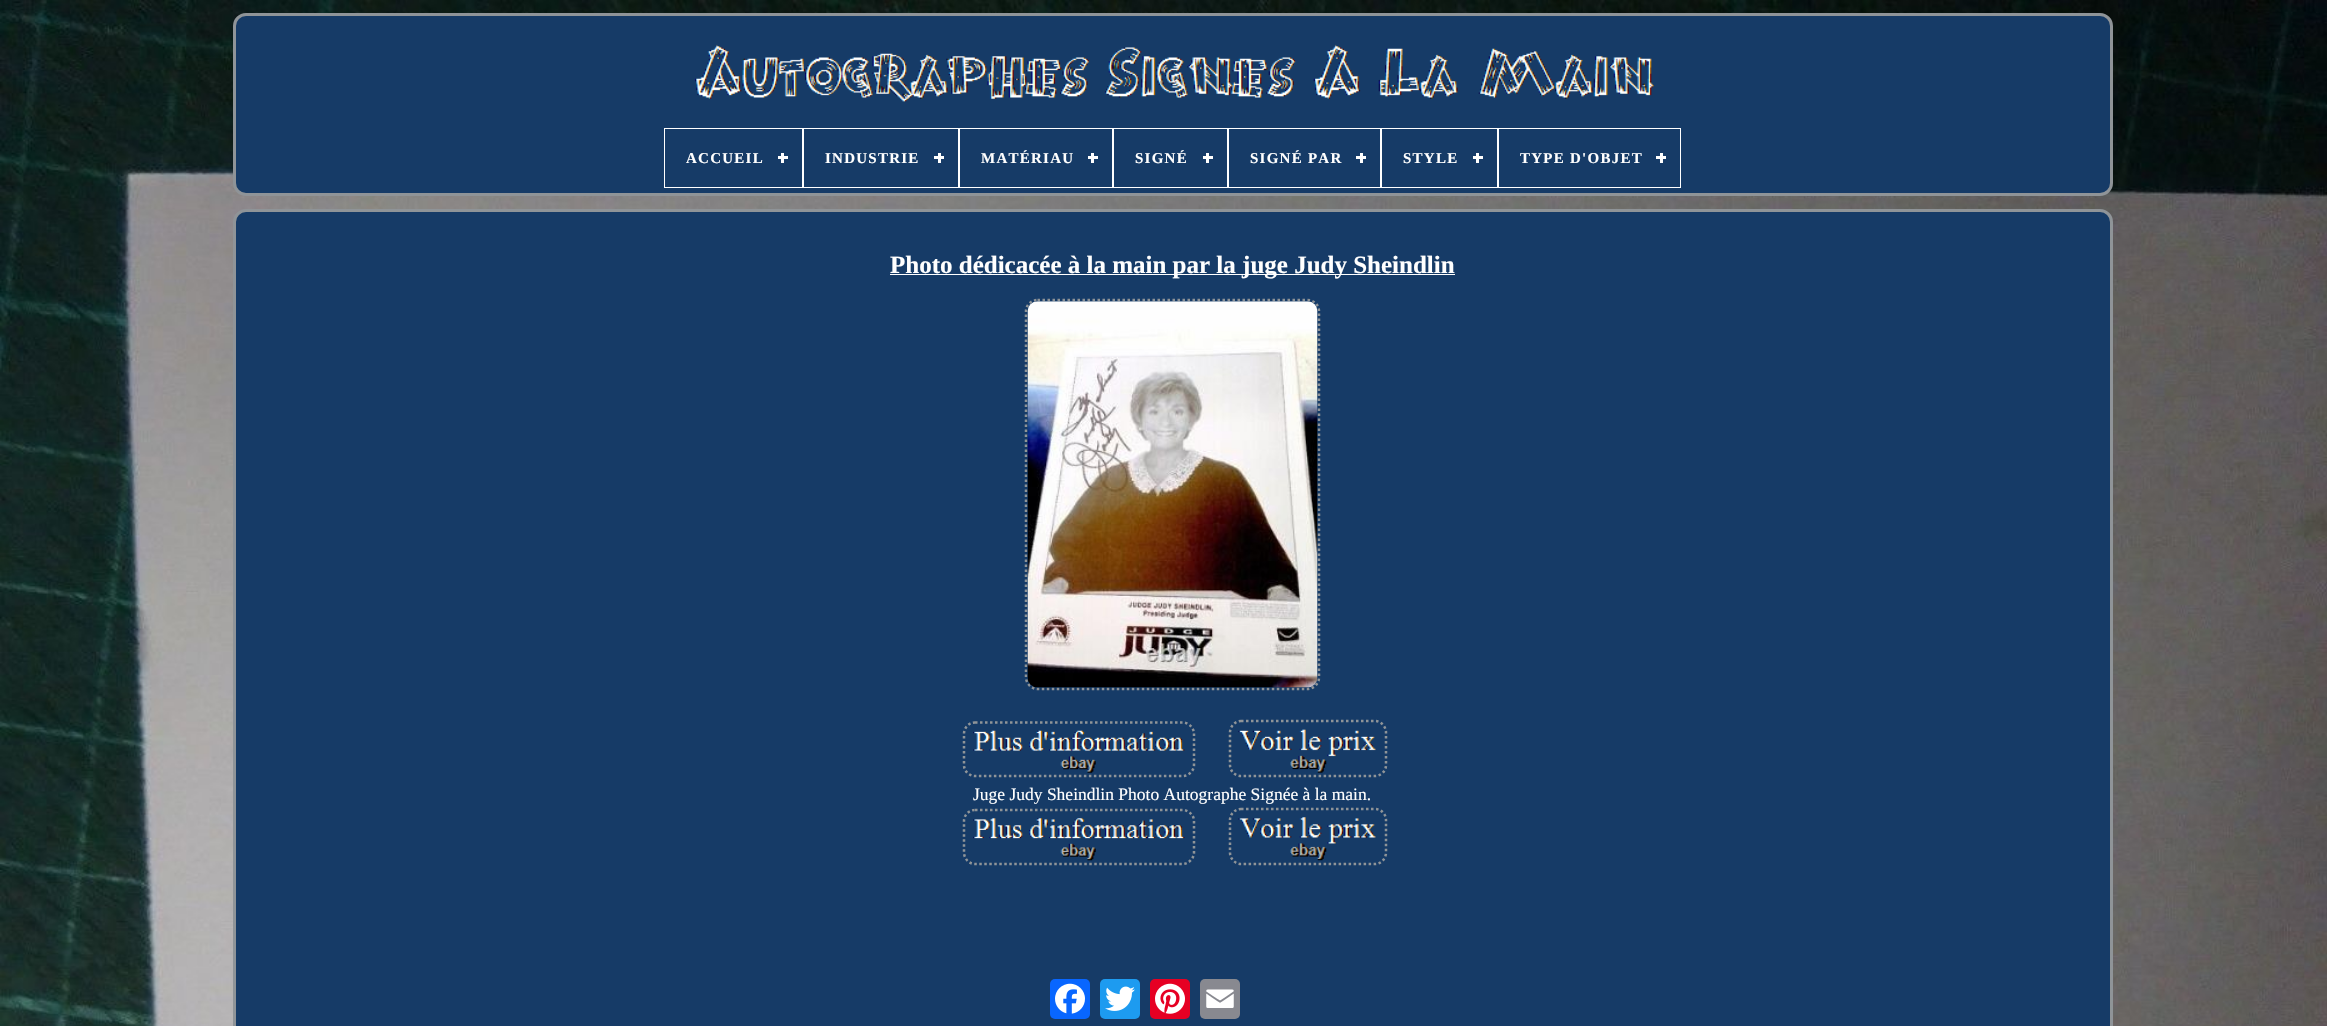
#include "include/core/SkBlurTypes.h"
#include "include/core/SkCanvas.h"
#include "include/core/SkData.h"
#include "include/core/SkFont.h"
#include "include/core/SkFontMgr.h"
#include "include/core/SkImage.h"
#include "include/core/SkMaskFilter.h"
#include "include/core/SkPaint.h"
#include "include/core/SkPathBuilder.h"
#include "include/core/SkTextBlob.h"
#include "include/effects/SkDashPathEffect.h"
#include "include/effects/SkGradientShader.h"
#include "include/utils/SkParsePath.h"

extern sk_sp<SkFontMgr> fontMgr;

void draw(SkCanvas* canvas) {
  SkPaint p;
  p.setAntiAlias(true);
  auto spacedText = [&](const char* s, float x, float y, const SkFont& font, const SkPaint& ink, float letter, float word) {
    std::vector<SkGlyphID> glyphs(font.countText(s, strlen(s), SkTextEncoding::kUTF8));
    std::vector<float> xs(glyphs.size());
    font.textToGlyphs(s, strlen(s), SkTextEncoding::kUTF8, glyphs);
    font.getXPos(glyphs, xs, x);
    float extra = 0;
    for (size_t i = 0; i < glyphs.size(); i++) {
      xs[i] += extra;
      extra += letter + word * (glyphs[i] == font.unicharToGlyph(' '));
    }
    canvas->drawTextBlob(SkTextBlob::MakeFromPosHGlyphs(glyphs, xs, y, font), 0, 0, ink);
  };
  canvas->clear(SK_ColorWHITE);
  canvas->drawImageRect(SkImages::DeferredFromEncodedData(SkData::MakeFromFileName("images/1.png")), SkRect::MakeLTRB(0, 0, 2327, 1026), SkSamplingOptions());
  p.setColor(SkColorSetRGB(22, 59, 103));
  canvas->drawRoundRect(SkRect::MakeLTRB(234.5f, 14.5f, 2111.5f, 194.5f), 11.5f, 11.5f, p);
  p.setStyle(SkPaint::kStroke_Style);
  p.setStrokeWidth(3);
  p.setColor(SkColorSetRGB(143, 148, 152));
  canvas->drawRoundRect(SkRect::MakeLTRB(234.5f, 14.5f, 2111.5f, 194.5f), 11.5f, 11.5f, p);
  canvas->drawImageRect(SkImages::DeferredFromEncodedData(SkData::MakeFromFileName("images/2.png")), SkRect::MakeLTRB(695, 44, 1654, 102), SkSamplingOptions());
  p.setStrokeWidth(1);
  p.setColor(SK_ColorWHITE);
  canvas->drawRect(SkRect::MakeLTRB(664.5f, 128.5f, 802.5f, 187.5f), p);
  p.setStyle(SkPaint::kFill_Style);
  canvas->drawRect(SkRect::MakeLTRB(781, 153, 784, 163), p);
  canvas->drawRect(SkRect::MakeLTRB(778, 156, 788, 159), p);
  p.setStyle(SkPaint::kStroke_Style);
  canvas->drawRect(SkRect::MakeLTRB(803.5f, 128.5f, 958.5f, 187.5f), p);
  p.setStyle(SkPaint::kFill_Style);
  canvas->drawRect(SkRect::MakeLTRB(938, 153, 941, 163), p);
  canvas->drawRect(SkRect::MakeLTRB(934, 156, 944, 159), p);
  p.setStyle(SkPaint::kStroke_Style);
  canvas->drawRect(SkRect::MakeLTRB(959.5f, 128.5f, 1112.5f, 187.5f), p);
  p.setStyle(SkPaint::kFill_Style);
  canvas->drawRect(SkRect::MakeLTRB(1091, 153, 1094, 163), p);
  canvas->drawRect(SkRect::MakeLTRB(1088, 156, 1098, 159), p);
  p.setStyle(SkPaint::kStroke_Style);
  canvas->drawRect(SkRect::MakeLTRB(1113.5f, 128.5f, 1227.5f, 187.5f), p);
  p.setStyle(SkPaint::kFill_Style);
  canvas->drawRect(SkRect::MakeLTRB(1206, 153, 1209, 163), p);
  canvas->drawRect(SkRect::MakeLTRB(1203, 156, 1213, 159), p);
  p.setStyle(SkPaint::kStroke_Style);
  canvas->drawRect(SkRect::MakeLTRB(1228.5f, 128.5f, 1380.5f, 187.5f), p);
  p.setStyle(SkPaint::kFill_Style);
  canvas->drawRect(SkRect::MakeLTRB(1360, 153, 1363, 163), p);
  canvas->drawRect(SkRect::MakeLTRB(1356, 156, 1366, 159), p);
  p.setStyle(SkPaint::kStroke_Style);
  canvas->drawRect(SkRect::MakeLTRB(1381.5f, 128.5f, 1497.5f, 187.5f), p);
  p.setStyle(SkPaint::kFill_Style);
  canvas->drawRect(SkRect::MakeLTRB(1476, 153, 1479, 163), p);
  canvas->drawRect(SkRect::MakeLTRB(1473, 156, 1483, 159), p);
  p.setStyle(SkPaint::kStroke_Style);
  canvas->drawRect(SkRect::MakeLTRB(1498.5f, 128.5f, 1680.5f, 187.5f), p);
  p.setStyle(SkPaint::kFill_Style);
  canvas->drawRect(SkRect::MakeLTRB(1660, 153, 1663, 163), p);
  canvas->drawRect(SkRect::MakeLTRB(1656, 156, 1666, 159), p);
  p.setColor(SkColorSetRGB(22, 59, 103));
  canvas->drawRoundRect(SkRect::MakeLTRB(234.5f, 210.5f, 2111.5f, 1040.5f), 11.5f, 11.5f, p);
  p.setStyle(SkPaint::kStroke_Style);
  p.setStrokeWidth(3);
  p.setColor(SkColorSetRGB(143, 148, 152));
  canvas->drawRoundRect(SkRect::MakeLTRB(234.5f, 210.5f, 2111.5f, 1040.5f), 11.5f, 11.5f, p);
  p.setStyle(SkPaint::kFill_Style);
  p.setColor(SK_ColorWHITE);
  canvas->drawRect(SkRect::MakeLTRB(890, 274, 1455, 275), p);
  p.setStyle(SkPaint::kStroke_Style);
  p.setStrokeWidth(2.5f);
  p.setColor(SkColorSetRGB(143, 148, 152));
  p.setPathEffect(SkDashPathEffect::Make({{2.5f, 2.5f}}, 0));
  canvas->drawPath(SkPathBuilder().moveTo(1037.5f, 300).lineTo(1307.5f, 300).cubicTo(1313.5f, 300, 1319, 305, 1319, 311).lineTo(1319, 677.5f).cubicTo(1319, 683.5f, 1313.5f, 689, 1307.5f, 689).lineTo(1037.5f, 689).cubicTo(1031.5f, 689, 1026, 683.5f, 1026, 677.5f).lineTo(1026, 311).cubicTo(1026, 305, 1031.5f, 300, 1037.5f, 300).close().detach(), p);
  p.setPathEffect(nullptr);
  canvas->drawImageRect(SkImages::DeferredFromEncodedData(SkData::MakeFromFileName("images/3.png")), SkRect::MakeLTRB(1027, 301, 1318, 688), SkSamplingOptions());
  p.setPathEffect(SkDashPathEffect::Make({{2.5f, 2.5f}}, 0));
  canvas->drawPath(SkPathBuilder().moveTo(975, 722.5f).lineTo(1182.5f, 722.5f).cubicTo(1188.5f, 722.5f, 1194, 727.5f, 1194, 734).lineTo(1194, 765).cubicTo(1194, 771, 1188.5f, 776, 1182.5f, 776).lineTo(975, 776).cubicTo(969, 776, 964, 771, 964, 765).lineTo(964, 734).cubicTo(964, 727.5f, 969, 722.5f, 975, 722.5f).close().detach(), p);
  p.setPathEffect(nullptr);
  canvas->drawImageRect(SkImages::DeferredFromEncodedData(SkData::MakeFromFileName("images/4.png")), SkRect::MakeLTRB(973, 730, 1185, 773), SkSamplingOptions());
  p.setPathEffect(SkDashPathEffect::Make({{2.5f, 2.5f}}, 0));
  canvas->drawPath(SkPathBuilder().moveTo(1241, 721).lineTo(1375, 721).cubicTo(1381, 721, 1386, 726.5f, 1386, 732.5f).lineTo(1386, 765).cubicTo(1386, 771, 1381, 776, 1375, 776).lineTo(1241, 776).cubicTo(1235, 776, 1230, 771, 1230, 765).lineTo(1230, 732.5f).cubicTo(1230, 726.5f, 1235, 721, 1241, 721).close().detach(), p);
  p.setPathEffect(nullptr);
  canvas->drawImageRect(SkImages::DeferredFromEncodedData(SkData::MakeFromFileName("images/5.png")), SkRect::MakeLTRB(1238, 729, 1376, 773), SkSamplingOptions());
  p.setPathEffect(SkDashPathEffect::Make({{2.5f, 2.5f}}, 0));
  canvas->drawPath(SkPathBuilder().moveTo(975, 810).lineTo(1182.5f, 810).cubicTo(1188.5f, 810, 1194, 815, 1194, 821).lineTo(1194, 852.5f).cubicTo(1194, 858.5f, 1188.5f, 864, 1182.5f, 864).lineTo(975, 864).cubicTo(969, 864, 964, 858.5f, 964, 852.5f).lineTo(964, 821).cubicTo(964, 815, 969, 810, 975, 810).close().detach(), p);
  p.setPathEffect(nullptr);
  canvas->drawImageRect(SkImages::DeferredFromEncodedData(SkData::MakeFromFileName("images/6.png")), SkRect::MakeLTRB(973, 818, 1185, 861), SkSamplingOptions());
  p.setPathEffect(SkDashPathEffect::Make({{2.5f, 2.5f}}, 0));
  canvas->drawPath(SkPathBuilder().moveTo(1241, 809).lineTo(1375, 809).cubicTo(1381, 809, 1386, 814, 1386, 820).lineTo(1386, 852.5f).cubicTo(1386, 858.5f, 1381, 864, 1375, 864).lineTo(1241, 864).cubicTo(1235, 864, 1230, 858.5f, 1230, 852.5f).lineTo(1230, 820).cubicTo(1230, 814, 1235, 809, 1241, 809).close().detach(), p);
  p.setPathEffect(nullptr);
  canvas->drawImageRect(SkImages::DeferredFromEncodedData(SkData::MakeFromFileName("images/7.png")), SkRect::MakeLTRB(1238, 817, 1376, 861), SkSamplingOptions());
  p.setStyle(SkPaint::kFill_Style);
  p.setColor(SkColorSetRGB(8, 102, 255));
  canvas->drawRoundRect(SkRect::MakeLTRB(1050, 979, 1090, 1019), 5, 5, p);
  canvas->drawImageRect(SkImages::DeferredFromEncodedData(SkData::MakeFromFileName("images/8.png")), SkRect::MakeLTRB(1055, 983, 1085, 1014), SkSamplingOptions());
  p.setColor(SkColorSetRGB(29, 155, 240));
  canvas->drawRoundRect(SkRect::MakeLTRB(1100, 979, 1140, 1019), 5, 5, p);
  canvas->drawImageRect(SkImages::DeferredFromEncodedData(SkData::MakeFromFileName("images/9.png")), SkRect::MakeLTRB(1105, 986, 1135, 1011), SkSamplingOptions());
  p.setColor(SkColorSetRGB(230, 0, 35));
  canvas->drawRoundRect(SkRect::MakeLTRB(1150, 979, 1190, 1019), 5, 5, p);
  canvas->drawImageRect(SkImages::DeferredFromEncodedData(SkData::MakeFromFileName("images/10.png")), SkRect::MakeLTRB(1155, 983, 1185, 1014), SkSamplingOptions());
  p.setColor(SkColorSetRGB(136, 137, 144));
  canvas->drawRoundRect(SkRect::MakeLTRB(1200, 979, 1240, 1019), 5, 5, p);
  canvas->drawImageRect(SkImages::DeferredFromEncodedData(SkData::MakeFromFileName("images/11.png")), SkRect::MakeLTRB(1206, 989, 1234, 1008), SkSamplingOptions());
  SkFont font1(fontMgr->matchFamilyStyle("Liberation Serif", SkFontStyle::Bold()), 15);
  font1.setSubpixel(true);
  p.setColor(SK_ColorWHITE);
  spacedText("ACCUEIL", 686, 163, font1, p, 1.25f, 0);
  spacedText("INDUSTRIE", 825, 163, font1, p, 1.25f, 0);
  spacedText("MATÉRIAU", 981, 163, font1, p, 1.25f, 0);
  spacedText("SIGNÉ", 1135, 163, font1, p, 1.25f, 0);
  spacedText("SIGNÉ PAR", 1250, 163, font1, p, 1.25f, 0);
  spacedText("STYLE", 1403, 163, font1, p, 1.25f, 0);
  spacedText("TYPE D'OBJET", 1520, 163, font1, p, 1.25f, 0);
  SkFont font2(fontMgr->matchFamilyStyle("Liberation Serif", SkFontStyle::Bold()), 25);
  font2.setSubpixel(true);
  canvas->drawString("Photo dédicacée à la main par la juge Judy Sheindlin", 890, 273, font2, p);
  SkFont font3(fontMgr->matchFamilyStyle("Liberation Serif", SkFontStyle::Normal()), 17.5f);
  font3.setSubpixel(true);
  canvas->drawString("Juge Judy Sheindlin Photo Autographe Signée à la main.", 973, 800, font3, p);
}
